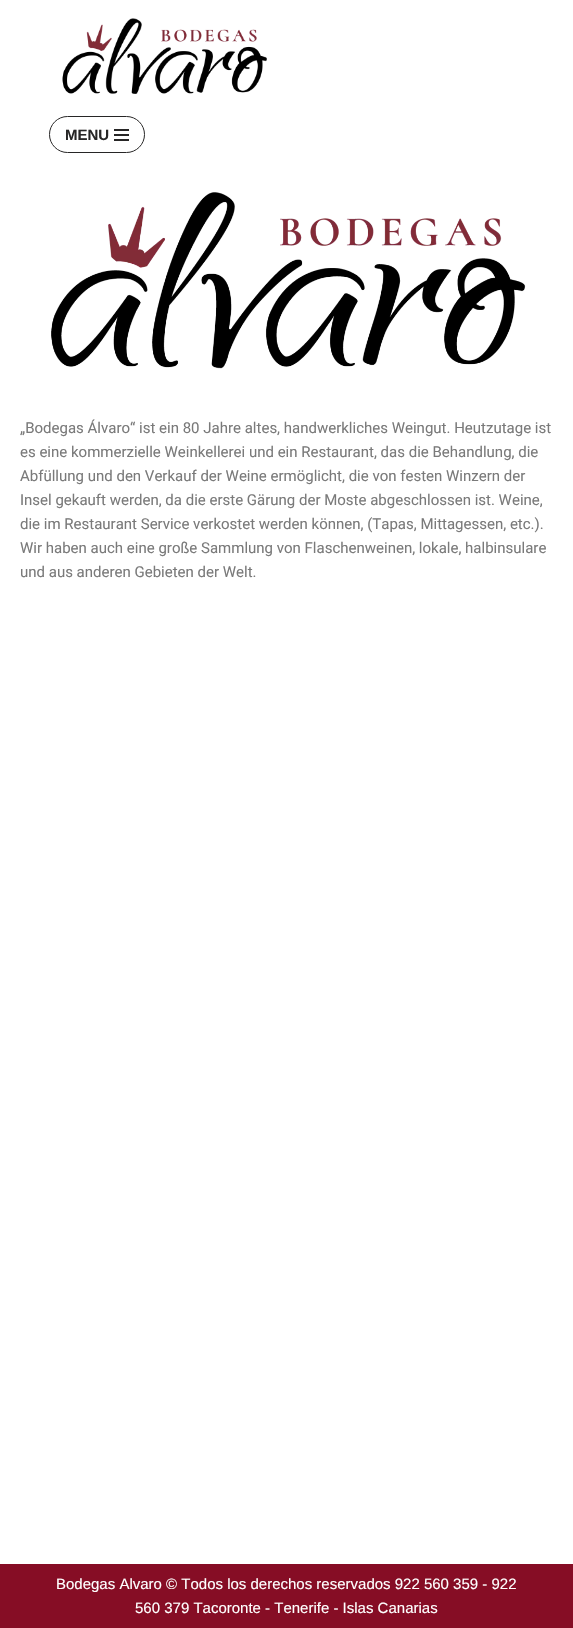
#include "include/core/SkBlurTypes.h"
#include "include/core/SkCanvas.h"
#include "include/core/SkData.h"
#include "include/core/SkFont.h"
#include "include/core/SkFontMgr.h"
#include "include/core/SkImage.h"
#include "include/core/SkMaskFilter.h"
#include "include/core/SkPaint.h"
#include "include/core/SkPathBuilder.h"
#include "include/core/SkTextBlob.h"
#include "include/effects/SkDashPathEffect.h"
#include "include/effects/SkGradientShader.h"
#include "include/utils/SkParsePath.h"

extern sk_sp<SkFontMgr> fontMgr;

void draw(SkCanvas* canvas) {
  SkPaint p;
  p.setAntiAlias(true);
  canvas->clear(SK_ColorWHITE);
  canvas->drawImageRect(SkImages::DeferredFromEncodedData(SkData::MakeFromFileName("images/1.png")), SkRect::MakeLTRB(62, 18, 267, 94), SkSamplingOptions());
  p.setStyle(SkPaint::kStroke_Style);
  p.setStrokeWidth(1);
  p.setColor(SkColorSetRGB(39, 38, 38));
  canvas->drawRoundRect(SkRect::MakeLTRB(49.5f, 116.5f, 144.5f, 152.5f), 18, 18, p);
  p.setStyle(SkPaint::kFill_Style);
  canvas->drawRect(SkRect::MakeLTRB(114, 129, 129, 131), p);
  canvas->drawRect(SkRect::MakeLTRB(114, 134, 129, 136), p);
  canvas->drawRect(SkRect::MakeLTRB(114, 139, 129, 141), p);
  canvas->drawImageRect(SkImages::DeferredFromEncodedData(SkData::MakeFromFileName("images/2.png")), SkRect::MakeLTRB(51, 192, 526, 369), SkSamplingOptions());
  p.setColor(SkColorSetRGB(134, 13, 37));
  canvas->drawRect(SkRect::MakeLTRB(0, 1564, 573, 1628), p);
  SkFont font1(fontMgr->matchFamilyStyle("Liberation Sans", SkFontStyle::Bold()), 15);
  font1.setSubpixel(true);
  p.setColor(SkColorSetRGB(39, 38, 38));
  canvas->drawString("MENU", 65, 140, font1, p);
  SkFont font2(fontMgr->matchFamilyStyle("Roboto", SkFontStyle::Normal()), 15);
  font2.setSubpixel(true);
  p.setColor(SkColorSetRGB(122, 122, 122));
  canvas->drawString("„Bodegas Álvaro“ ist ein 80 Jahre altes, handwerkliches Weingut. Heutzutage ist", 20, 433, font2, p);
  canvas->drawString("es eine kommerzielle Weinkellerei und ein Restaurant, das die Behandlung, die", 20, 457, font2, p);
  canvas->drawString("Abfüllung und den Verkauf der Weine ermöglicht, die von festen Winzern der", 20, 481, font2, p);
  canvas->drawString("Insel gekauft werden, da die erste Gärung der Moste abgeschlossen ist. Weine,", 20, 505, font2, p);
  canvas->drawString("die im Restaurant Service verkostet werden können, (Tapas, Mittagessen, etc.).", 20, 529, font2, p);
  canvas->drawString("Wir haben auch eine große Sammlung von Flaschenweinen, lokale, halbinsulare", 20, 553, font2, p);
  canvas->drawString("und aus anderen Gebieten der Welt.", 20, 577, font2, p);
  SkFont font3(fontMgr->matchFamilyStyle("Liberation Sans", SkFontStyle::Normal()), 15);
  font3.setSubpixel(true);
  p.setColor(SK_ColorWHITE);
  canvas->drawString("Bodegas Alvaro © Todos los derechos reservados 922 560 359 - 922", 56, 1589, font3, p);
  canvas->drawString("560 379 Tacoronte - Tenerife - Islas Canarias", 135, 1613, font3, p);
}
